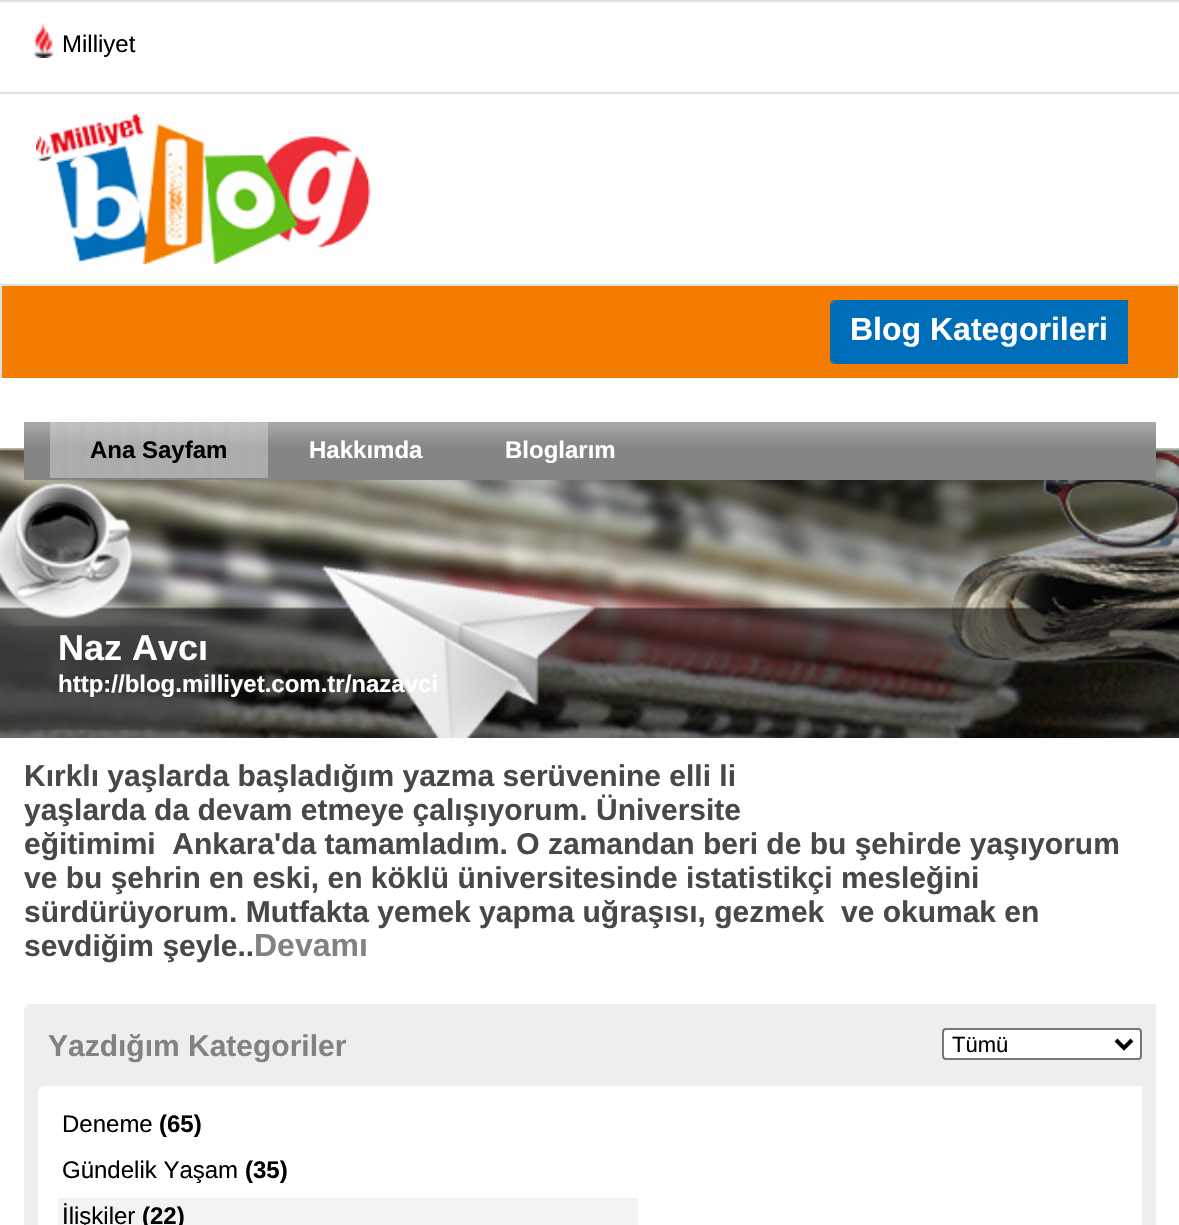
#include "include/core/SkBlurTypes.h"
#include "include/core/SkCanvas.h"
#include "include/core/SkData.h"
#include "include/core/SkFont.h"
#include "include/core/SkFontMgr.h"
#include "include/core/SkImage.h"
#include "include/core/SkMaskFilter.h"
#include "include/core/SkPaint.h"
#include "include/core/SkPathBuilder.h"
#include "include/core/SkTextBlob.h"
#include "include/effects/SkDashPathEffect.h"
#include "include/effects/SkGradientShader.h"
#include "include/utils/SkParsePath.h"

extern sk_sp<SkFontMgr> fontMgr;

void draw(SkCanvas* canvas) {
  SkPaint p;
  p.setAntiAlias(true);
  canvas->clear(SK_ColorWHITE);
  canvas->drawImageRect(SkImages::DeferredFromEncodedData(SkData::MakeFromFileName("images/1.png")), SkRect::MakeLTRB(0, 0, 1179, 94), SkSamplingOptions());
  canvas->drawImageRect(SkImages::DeferredFromEncodedData(SkData::MakeFromFileName("images/2.png")), SkRect::MakeLTRB(33, 24, 55, 58), SkSamplingOptions());
  canvas->drawImageRect(SkImages::DeferredFromEncodedData(SkData::MakeFromFileName("images/3.png")), SkRect::MakeLTRB(36, 114, 370, 264), SkSamplingOptions());
  p.setColor(SkColorSetRGB(244, 124, 0));
  canvas->drawRect(SkRect::MakeLTRB(2, 286, 1178, 378), p);
  p.setColor(SkColorSetRGB(224, 224, 224));
  canvas->drawRect(SkRect::MakeLTRB(0, 284, 1179, 286), p);
  canvas->drawRect(SkRect::MakeLTRB(1178, 284, 1179, 378), p);
  canvas->drawRect(SkRect::MakeLTRB(0, 284, 2, 378), p);
  canvas->drawImageRect(SkImages::DeferredFromEncodedData(SkData::MakeFromFileName("images/4.png")), SkRect::MakeLTRB(830, 300, 1128, 364), SkSamplingOptions());
  canvas->drawImageRect(SkImages::DeferredFromEncodedData(SkData::MakeFromFileName("images/5.png")), SkRect::MakeLTRB(0, 448, 1179, 738), SkSamplingOptions());
  canvas->drawImageRect(SkImages::DeferredFromEncodedData(SkData::MakeFromFileName("images/6.png")), SkRect::MakeLTRB(24, 422, 1156, 480), SkSamplingOptions());
  canvas->drawImageRect(SkImages::DeferredFromEncodedData(SkData::MakeFromFileName("images/7.png")), SkRect::MakeLTRB(50, 422, 268, 478), SkSamplingOptions());
  p.setColor(SkColorSetRGB(238, 238, 238));
  canvas->drawRect(SkRect::MakeLTRB(24, 1004, 1156, 1225), p);
  canvas->drawImageRect(SkImages::DeferredFromEncodedData(SkData::MakeFromFileName("images/8.png")), SkRect::MakeLTRB(24, 1004, 28, 1008), SkSamplingOptions());
  p.setColor(SK_ColorWHITE);
  canvas->drawRoundRect(SkRect::MakeLTRB(943, 1029, 1141, 1059), 3, 3, p);
  p.setStyle(SkPaint::kStroke_Style);
  p.setStrokeWidth(2);
  p.setColor(SkColorSetRGB(118, 118, 118));
  canvas->drawRoundRect(SkRect::MakeLTRB(943, 1029, 1141, 1059), 3, 3, p);
  p.setStrokeWidth(4);
  p.setColor(SK_ColorBLACK);
  canvas->drawPath(SkPathBuilder().moveTo(1116, 1040).lineTo(1124, 1048).lineTo(1132, 1040).detach(), p);
  p.setStyle(SkPaint::kFill_Style);
  p.setColor(SK_ColorWHITE);
  canvas->drawRect(SkRect::MakeLTRB(38, 1086, 1142, 1225), p);
  canvas->drawImageRect(SkImages::DeferredFromEncodedData(SkData::MakeFromFileName("images/9.png")), SkRect::MakeLTRB(38, 1086, 43, 1090), SkSamplingOptions());
  p.setColor(SkColorSetRGB(243, 243, 243));
  canvas->drawRect(SkRect::MakeLTRB(58, 1198, 638, 1225), p);
  SkFont font1(fontMgr->matchFamilyStyle("Liberation Sans", SkFontStyle::Normal()), 24);
  font1.setSubpixel(true);
  p.setColor(SK_ColorBLACK);
  canvas->drawString("Milliyet", 62, 52, font1, p);
  SkFont font2(fontMgr->matchFamilyStyle("Liberation Sans", SkFontStyle::Bold()), 32);
  font2.setSubpixel(true);
  p.setColor(SK_ColorWHITE);
  canvas->drawString("Blog Kategorileri", 850, 340, font2, p);
  SkFont font3(fontMgr->matchFamilyStyle("Liberation Sans", SkFontStyle::Bold()), 24);
  font3.setSubpixel(true);
  p.setColor(SK_ColorBLACK);
  canvas->drawString("Ana Sayfam", 90, 458, font3, p);
  p.setColor(SK_ColorWHITE);
  canvas->drawString("Hakkımda", 309, 458, font3, p);
  canvas->drawString("Bloglarım", 505, 458, font3, p);
  SkFont font4(fontMgr->matchFamilyStyle("Liberation Sans", SkFontStyle::Bold()), 36);
  font4.setSubpixel(true);
  canvas->drawString("Naz Avcı", 58, 660, font4, p);
  canvas->drawString("http://blog.milliyet.com.tr/nazavci", 58, 692, font3, p);
  SkFont font5(fontMgr->matchFamilyStyle("Liberation Sans", SkFontStyle::Bold()), 30);
  font5.setSubpixel(true);
  p.setColor(SkColorSetRGB(72, 72, 72));
  canvas->drawString("Kırklı yaşlarda başladığım yazma serüvenine elli li", 24, 786, font5, p);
  canvas->drawString("yaşlarda da devam etmeye çalışıyorum. Üniversite", 24, 820, font5, p);
  canvas->drawString("eğitimimi  Ankara'da tamamladım. O zamandan beri de bu şehirde yaşıyorum", 24, 854, font5, p);
  canvas->drawString("ve bu şehrin en eski, en köklü üniversitesinde istatistikçi mesleğini", 24, 888, font5, p);
  canvas->drawString("sürdürüyorum. Mutfakta yemek yapma uğraşısı, gezmek  ve okumak en", 24, 922, font5, p);
  canvas->drawString("sevdiğim şeyle..", 24, 956, font5, p);
  p.setColor(SkColorSetRGB(130, 130, 130));
  canvas->drawString("Devamı", 254, 956, font2, p);
  canvas->drawString("Yazdığım Kategoriler", 48, 1056, font5, p);
  SkFont font6(fontMgr->matchFamilyStyle("Liberation Sans", SkFontStyle::Normal()), 22);
  font6.setSubpixel(true);
  p.setColor(SK_ColorBLACK);
  canvas->drawString("Tümü", 952, 1052, font6, p);
  canvas->drawString("Deneme", 62, 1132, font1, p);
  canvas->drawString("(65)", 159, 1132, font3, p);
  canvas->drawString("Gündelik Yaşam", 62, 1178, font1, p);
  canvas->drawString("(35)", 245, 1178, font3, p);
  canvas->drawString("İlişkiler", 62, 1224, font1, p);
  canvas->drawString("(22)", 142, 1224, font3, p);
}
